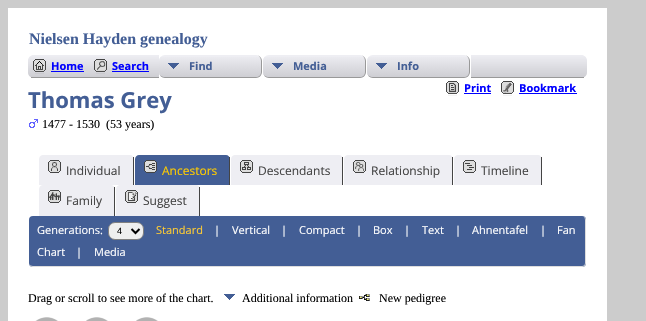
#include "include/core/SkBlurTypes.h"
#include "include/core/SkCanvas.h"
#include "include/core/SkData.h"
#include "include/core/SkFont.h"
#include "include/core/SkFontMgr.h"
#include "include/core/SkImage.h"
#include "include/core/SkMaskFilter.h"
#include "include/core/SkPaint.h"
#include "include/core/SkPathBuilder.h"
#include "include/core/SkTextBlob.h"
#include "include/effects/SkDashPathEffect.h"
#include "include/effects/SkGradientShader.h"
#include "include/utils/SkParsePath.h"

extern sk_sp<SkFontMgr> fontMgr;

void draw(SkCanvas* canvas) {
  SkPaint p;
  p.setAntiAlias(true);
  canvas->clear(SkColorSetRGB(204, 204, 204));
  p.setColor(SK_ColorWHITE);
  canvas->drawRect(SkRect::MakeLTRB(8, 8, 607, 321), p);
  p.setColor(SkColorSetRGB(238, 238, 243));
  canvas->drawRoundRect(SkRect::MakeLTRB(28, 55, 587, 78), 6, 6, p);
  canvas->save();
  canvas->clipPath(SkPathBuilder().moveTo(34, 55).lineTo(581, 55).cubicTo(584.5f, 55, 587, 57.5f, 587, 61).lineTo(587, 72).cubicTo(587, 75.5f, 584.5f, 78, 581, 78).lineTo(34, 78).cubicTo(30.5f, 78, 28, 75.5f, 28, 72).lineTo(28, 61).cubicTo(28, 57.5f, 30.5f, 55, 34, 55).close().detach(), true);
  {
    const SkColor colors[] = {SkColorSetRGB(238, 238, 243), SkColorSetRGB(206, 206, 211)};
    const float stops[] = {0, 1};
    const SkPoint ends[] = {{308, 55}, {308, 77}};
    p.setShader(SkGradientShader::MakeLinear(ends, colors, stops, 2, SkTileMode::kClamp));
    p.setAlpha(255);
  }
  canvas->drawPath(SkPathBuilder().moveTo(34, 55).lineTo(581, 55).cubicTo(584.5f, 55, 587, 57.5f, 587, 61).lineTo(587, 77).lineTo(28, 77).lineTo(28, 61).cubicTo(28, 57.5f, 30.5f, 55, 34, 55).close().detach(), p);
  canvas->restore();
  p.setShader(nullptr);
  p.setColor(SkColorSetRGB(153, 153, 153));
  canvas->drawRect(SkRect::MakeLTRB(31, 77, 584, 78), p);
  canvas->drawImageRect(SkImages::DeferredFromEncodedData(SkData::MakeFromFileName("images/1.png")), SkRect::MakeLTRB(33, 59, 46, 74), SkSamplingOptions());
  p.setColor(SkColorSetRGB(0, 0, 255));
  canvas->drawRect(SkRect::MakeLTRB(51, 71, 84, 72), p);
  canvas->drawImageRect(SkImages::DeferredFromEncodedData(SkData::MakeFromFileName("images/2.png")), SkRect::MakeLTRB(94, 59, 107, 74), SkSamplingOptions());
  canvas->drawRect(SkRect::MakeLTRB(112, 71, 149, 72), p);
  p.setColor(SK_ColorWHITE);
  canvas->drawRect(SkRect::MakeLTRB(159, 55, 471, 78), p);
  p.setColor(SkColorSetRGB(238, 238, 243));
  canvas->drawRoundRect(SkRect::MakeLTRB(159, 55, 262, 78), 6, 6, p);
  canvas->drawImageRect(SkImages::DeferredFromEncodedData(SkData::MakeFromFileName("images/3.png")), SkRect::MakeLTRB(159, 57, 261, 77), SkSamplingOptions());
  p.setColor(SkColorSetRGB(153, 153, 153));
  canvas->drawPath(SkPathBuilder(SkPathFillType::kEvenOdd).moveTo(165, 55).lineTo(256, 55).cubicTo(259, 55, 262, 58, 262, 61).lineTo(262, 72).cubicTo(262, 75, 259, 78, 256, 78).lineTo(165, 78).cubicTo(162, 78, 159, 75, 159, 72).lineTo(159, 61).cubicTo(159, 58, 162, 55, 165, 55).close().moveTo(165, 55).lineTo(256, 55).cubicTo(259, 55, 261, 58, 261, 61).lineTo(261, 72).cubicTo(261, 75, 259, 77, 256, 77).lineTo(165, 77).cubicTo(162, 77, 159, 75, 159, 72).lineTo(159, 61).cubicTo(159, 58, 162, 55, 165, 55).close().detach(), p);
  p.setColor(SkColorSetRGB(238, 238, 243));
  canvas->drawRoundRect(SkRect::MakeLTRB(263, 55, 366, 78), 6, 6, p);
  canvas->drawImageRect(SkImages::DeferredFromEncodedData(SkData::MakeFromFileName("images/4.png")), SkRect::MakeLTRB(263, 57, 365, 77), SkSamplingOptions());
  p.setColor(SkColorSetRGB(153, 153, 153));
  canvas->drawPath(SkPathBuilder(SkPathFillType::kEvenOdd).moveTo(269, 55).lineTo(360, 55).cubicTo(363, 55, 366, 58, 366, 61).lineTo(366, 72).cubicTo(366, 75, 363, 78, 360, 78).lineTo(269, 78).cubicTo(266, 78, 263, 75, 263, 72).lineTo(263, 61).cubicTo(263, 58, 266, 55, 269, 55).close().moveTo(269, 55).lineTo(360, 55).cubicTo(363, 55, 365, 58, 365, 61).lineTo(365, 72).cubicTo(365, 75, 363, 77, 360, 77).lineTo(269, 77).cubicTo(266, 77, 263, 75, 263, 72).lineTo(263, 61).cubicTo(263, 58, 266, 55, 269, 55).close().detach(), p);
  p.setColor(SkColorSetRGB(238, 238, 243));
  canvas->drawRoundRect(SkRect::MakeLTRB(367, 55, 470, 78), 6, 6, p);
  canvas->drawImageRect(SkImages::DeferredFromEncodedData(SkData::MakeFromFileName("images/4.png")), SkRect::MakeLTRB(367, 57, 469, 77), SkSamplingOptions());
  p.setColor(SkColorSetRGB(153, 153, 153));
  canvas->drawPath(SkPathBuilder(SkPathFillType::kEvenOdd).moveTo(373, 55).lineTo(464, 55).cubicTo(467, 55, 470, 58, 470, 61).lineTo(470, 72).cubicTo(470, 75, 467, 78, 464, 78).lineTo(373, 78).cubicTo(370, 78, 367, 75, 367, 72).lineTo(367, 61).cubicTo(367, 58, 370, 55, 373, 55).close().moveTo(373, 55).lineTo(464, 55).cubicTo(467, 55, 469, 58, 469, 61).lineTo(469, 72).cubicTo(469, 75, 467, 77, 464, 77).lineTo(373, 77).cubicTo(370, 77, 367, 75, 367, 72).lineTo(367, 61).cubicTo(367, 58, 370, 55, 373, 55).close().detach(), p);
  canvas->drawImageRect(SkImages::DeferredFromEncodedData(SkData::MakeFromFileName("images/5.png")), SkRect::MakeLTRB(446, 81, 459, 96), SkSamplingOptions());
  p.setColor(SkColorSetRGB(0, 0, 255));
  canvas->drawRect(SkRect::MakeLTRB(464, 93, 491, 94), p);
  canvas->drawImageRect(SkImages::DeferredFromEncodedData(SkData::MakeFromFileName("images/6.png")), SkRect::MakeLTRB(501, 81, 514, 96), SkSamplingOptions());
  canvas->drawRect(SkRect::MakeLTRB(519, 93, 577, 94), p);
  canvas->drawImageRect(SkImages::DeferredFromEncodedData(SkData::MakeFromFileName("images/7.png")), SkRect::MakeLTRB(29, 119, 38, 128), SkSamplingOptions());
  p.setColor(SkColorSetRGB(238, 238, 243));
  canvas->drawPath(SkPathBuilder().moveTo(43, 155).lineTo(130, 155).cubicTo(132, 155, 134, 157, 134, 159).lineTo(134, 185).lineTo(39, 185).lineTo(39, 159).cubicTo(39, 157, 41, 155, 43, 155).close().detach(), p);
  p.setColor(SkColorSetRGB(68, 68, 68));
  canvas->drawRect(SkRect::MakeLTRB(133, 157, 134, 185), p);
  canvas->drawImageRect(SkImages::DeferredFromEncodedData(SkData::MakeFromFileName("images/8.png")), SkRect::MakeLTRB(48, 160, 61, 173), SkSamplingOptions());
  p.setColor(SkColorSetRGB(67, 94, 149));
  canvas->drawPath(SkPathBuilder().moveTo(139, 155).lineTo(226, 155).cubicTo(228, 155, 230, 157, 230, 159).lineTo(230, 185).lineTo(135, 185).lineTo(135, 159).cubicTo(135, 157, 137, 155, 139, 155).close().detach(), p);
  p.setColor(SkColorSetRGB(68, 68, 68));
  canvas->drawRect(SkRect::MakeLTRB(229, 157, 230, 185), p);
  canvas->drawImageRect(SkImages::DeferredFromEncodedData(SkData::MakeFromFileName("images/9.png")), SkRect::MakeLTRB(144, 160, 157, 173), SkSamplingOptions());
  p.setColor(SkColorSetRGB(238, 238, 243));
  canvas->drawPath(SkPathBuilder().moveTo(235, 155).lineTo(339, 155).cubicTo(341, 155, 343, 157, 343, 159).lineTo(343, 185).lineTo(231, 185).lineTo(231, 159).cubicTo(231, 157, 233, 155, 235, 155).close().detach(), p);
  p.setColor(SkColorSetRGB(68, 68, 68));
  canvas->drawRect(SkRect::MakeLTRB(342, 157, 343, 185), p);
  canvas->drawImageRect(SkImages::DeferredFromEncodedData(SkData::MakeFromFileName("images/10.png")), SkRect::MakeLTRB(240, 160, 253, 173), SkSamplingOptions());
  p.setColor(SkColorSetRGB(238, 238, 243));
  canvas->drawPath(SkPathBuilder().moveTo(348, 155).lineTo(449, 155).cubicTo(451, 155, 453, 157, 453, 159).lineTo(453, 185).lineTo(344, 185).lineTo(344, 159).cubicTo(344, 157, 346, 155, 348, 155).close().detach(), p);
  p.setColor(SkColorSetRGB(68, 68, 68));
  canvas->drawRect(SkRect::MakeLTRB(452, 157, 453, 185), p);
  canvas->drawImageRect(SkImages::DeferredFromEncodedData(SkData::MakeFromFileName("images/11.png")), SkRect::MakeLTRB(353, 160, 366, 173), SkSamplingOptions());
  p.setColor(SkColorSetRGB(238, 238, 243));
  canvas->drawPath(SkPathBuilder().moveTo(458, 155).lineTo(538, 155).cubicTo(540, 155, 542, 157, 542, 159).lineTo(542, 185).lineTo(454, 185).lineTo(454, 159).cubicTo(454, 157, 456, 155, 458, 155).close().detach(), p);
  p.setColor(SkColorSetRGB(68, 68, 68));
  canvas->drawRect(SkRect::MakeLTRB(541, 157, 542, 185), p);
  canvas->drawImageRect(SkImages::DeferredFromEncodedData(SkData::MakeFromFileName("images/12.png")), SkRect::MakeLTRB(463, 160, 476, 173), SkSamplingOptions());
  p.setColor(SkColorSetRGB(238, 238, 243));
  canvas->drawPath(SkPathBuilder().moveTo(43, 185).lineTo(111, 185).cubicTo(113, 185, 115, 187, 115, 189).lineTo(115, 216).lineTo(39, 216).lineTo(39, 189).cubicTo(39, 187, 41, 185, 43, 185).close().detach(), p);
  p.setColor(SkColorSetRGB(68, 68, 68));
  canvas->drawRect(SkRect::MakeLTRB(114, 187, 115, 216), p);
  canvas->drawImageRect(SkImages::DeferredFromEncodedData(SkData::MakeFromFileName("images/13.png")), SkRect::MakeLTRB(48, 190, 61, 203), SkSamplingOptions());
  p.setColor(SkColorSetRGB(238, 238, 243));
  canvas->drawPath(SkPathBuilder().moveTo(120, 185).lineTo(196, 185).cubicTo(198, 185, 200, 187, 200, 189).lineTo(200, 216).lineTo(116, 216).lineTo(116, 189).cubicTo(116, 187, 118, 185, 120, 185).close().detach(), p);
  p.setColor(SkColorSetRGB(68, 68, 68));
  canvas->drawRect(SkRect::MakeLTRB(199, 187, 200, 216), p);
  canvas->drawImageRect(SkImages::DeferredFromEncodedData(SkData::MakeFromFileName("images/14.png")), SkRect::MakeLTRB(125, 190, 138, 203), SkSamplingOptions());
  p.setColor(SkColorSetRGB(67, 94, 149));
  canvas->drawRoundRect(SkRect::MakeLTRB(29, 216, 586, 267), 4, 4, p);
  p.setColor(SkColorSetRGB(221, 221, 221));
  canvas->drawPath(SkPathBuilder(SkPathFillType::kEvenOdd).moveTo(33, 216).lineTo(582, 216).cubicTo(584, 216, 586, 218, 586, 220).lineTo(586, 263).cubicTo(586, 265, 584, 267, 582, 267).lineTo(33, 267).cubicTo(31, 267, 29, 265, 29, 263).lineTo(29, 220).cubicTo(29, 218, 31, 216, 33, 216).close().moveTo(33, 216).lineTo(582, 216).cubicTo(584, 216, 585, 218, 585, 220).lineTo(585, 263).cubicTo(585, 265, 584, 266, 582, 266).lineTo(33, 266).cubicTo(31, 266, 29, 265, 29, 263).lineTo(29, 220).cubicTo(29, 218, 31, 216, 33, 216).close().detach(), p);
  p.setColor(SkColorSetRGB(239, 239, 239));
  canvas->drawRoundRect(SkRect::MakeLTRB(108.5f, 222.5f, 143.5f, 239.5f), 6.5f, 6.5f, p);
  p.setStyle(SkPaint::kStroke_Style);
  p.setStrokeWidth(1);
  p.setColor(SkColorSetRGB(128, 128, 128));
  canvas->drawRoundRect(SkRect::MakeLTRB(108.5f, 222.5f, 143.5f, 239.5f), 6.5f, 6.5f, p);
  p.setStrokeWidth(2);
  p.setColor(SK_ColorBLACK);
  canvas->drawPath(SkPathBuilder().moveTo(131.5f, 229).lineTo(135.5f, 233).lineTo(139.5f, 229).detach(), p);
  canvas->drawImageRect(SkImages::DeferredFromEncodedData(SkData::MakeFromFileName("images/15.png")), SkRect::MakeLTRB(224, 294, 235, 300), SkSamplingOptions());
  canvas->drawImageRect(SkImages::DeferredFromEncodedData(SkData::MakeFromFileName("images/16.png")), SkRect::MakeLTRB(359, 294, 370, 301), SkSamplingOptions());
  canvas->drawImageRect(SkImages::DeferredFromEncodedData(SkData::MakeFromFileName("images/17.png")), SkRect::MakeLTRB(35, 317, 58, 321), SkSamplingOptions());
  canvas->drawImageRect(SkImages::DeferredFromEncodedData(SkData::MakeFromFileName("images/18.png")), SkRect::MakeLTRB(86, 317, 108, 321), SkSamplingOptions());
  canvas->drawImageRect(SkImages::DeferredFromEncodedData(SkData::MakeFromFileName("images/19.png")), SkRect::MakeLTRB(136, 317, 158, 321), SkSamplingOptions());
  SkFont font1(fontMgr->matchFamilyStyle("Liberation Serif", SkFontStyle::Bold()), 16);
  font1.setSubpixel(true);
  p.setStyle(SkPaint::kFill_Style);
  p.setColor(SkColorSetRGB(67, 94, 149));
  canvas->drawString("Nielsen Hayden genealogy", 29, 44, font1, p);
  SkFont font2(fontMgr->matchFamilyStyle("Open Sans", SkFontStyle::Bold()), 11);
  font2.setSubpixel(true);
  p.setColor(SkColorSetRGB(0, 0, 255));
  canvas->drawString("Home", 51, 70, font2, p);
  canvas->drawString("Search", 112, 70, font2, p);
  p.setColor(SkColorSetRGB(67, 94, 149));
  canvas->drawString("Find", 189, 70, font2, p);
  canvas->drawString("Media", 293, 70, font2, p);
  canvas->drawString("Info", 397, 70, font2, p);
  p.setColor(SkColorSetRGB(0, 0, 255));
  canvas->drawString("Print", 464, 92, font2, p);
  canvas->drawString("Bookmark", 519, 92, font2, p);
  SkFont font3(fontMgr->matchFamilyStyle("Open Sans", SkFontStyle::Bold()), 22);
  font3.setSubpixel(true);
  p.setColor(SkColorSetRGB(67, 94, 149));
  canvas->drawString("Thomas Grey", 28, 108, font3, p);
  SkFont font4(fontMgr->matchFamilyStyle("Liberation Serif", SkFontStyle::Normal()), 12);
  font4.setSubpixel(true);
  p.setColor(SK_ColorBLACK);
  canvas->drawString("1477 - 1530  (53 years)", 42, 128, font4, p);
  SkFont font5(fontMgr->matchFamilyStyle("Open Sans", SkFontStyle::Normal()), 12);
  font5.setSubpixel(true);
  p.setColor(SkColorSetRGB(68, 68, 68));
  canvas->drawString("Individual", 66, 175, font5, p);
  p.setColor(SkColorSetRGB(255, 204, 0));
  canvas->drawString("Ancestors", 162, 175, font5, p);
  p.setColor(SkColorSetRGB(68, 68, 68));
  canvas->drawString("Descendants", 258, 175, font5, p);
  canvas->drawString("Relationship", 371, 175, font5, p);
  canvas->drawString("Timeline", 481, 175, font5, p);
  canvas->drawString("Family", 66, 205, font5, p);
  canvas->drawString("Suggest", 143, 205, font5, p);
  SkFont font6(fontMgr->matchFamilyStyle("Open Sans", SkFontStyle::Normal()), 11);
  font6.setSubpixel(true);
  p.setColor(SK_ColorWHITE);
  canvas->drawString("Generations:", 37, 234, font6, p);
  SkFont font7(fontMgr->matchFamilyStyle("Liberation Sans", SkFontStyle::Normal()), 9);
  font7.setSubpixel(true);
  p.setColor(SK_ColorBLACK);
  canvas->drawString("4", 117, 234, font7, p);
  p.setColor(SkColorSetRGB(255, 204, 51));
  canvas->drawString("Standard", 156, 234, font6, p);
  p.setColor(SK_ColorWHITE);
  canvas->drawString("|", 214, 234, font6, p);
  canvas->drawString("Vertical", 232, 234, font6, p);
  canvas->drawString("|", 281, 234, font6, p);
  canvas->drawString("Compact", 299, 234, font6, p);
  canvas->drawString("|", 356, 234, font6, p);
  canvas->drawString("Box", 373, 234, font6, p);
  canvas->drawString("|", 404, 234, font6, p);
  canvas->drawString("Text", 422, 234, font6, p);
  canvas->drawString("|", 455, 234, font6, p);
  canvas->drawString("Ahnentafel", 472, 234, font6, p);
  canvas->drawString("|", 540, 234, font6, p);
  canvas->drawString("Fan", 557, 234, font6, p);
  canvas->drawString("Chart", 37, 256, font6, p);
  canvas->drawString("|", 76, 256, font6, p);
  canvas->drawString("Media", 94, 256, font6, p);
  p.setColor(SK_ColorBLACK);
  canvas->drawString("Drag or scroll to see more of the chart.", 28, 302, font4, p);
  canvas->drawString("Additional information", 242, 302, font4, p);
  canvas->drawString("New pedigree", 379, 302, font4, p);
}
